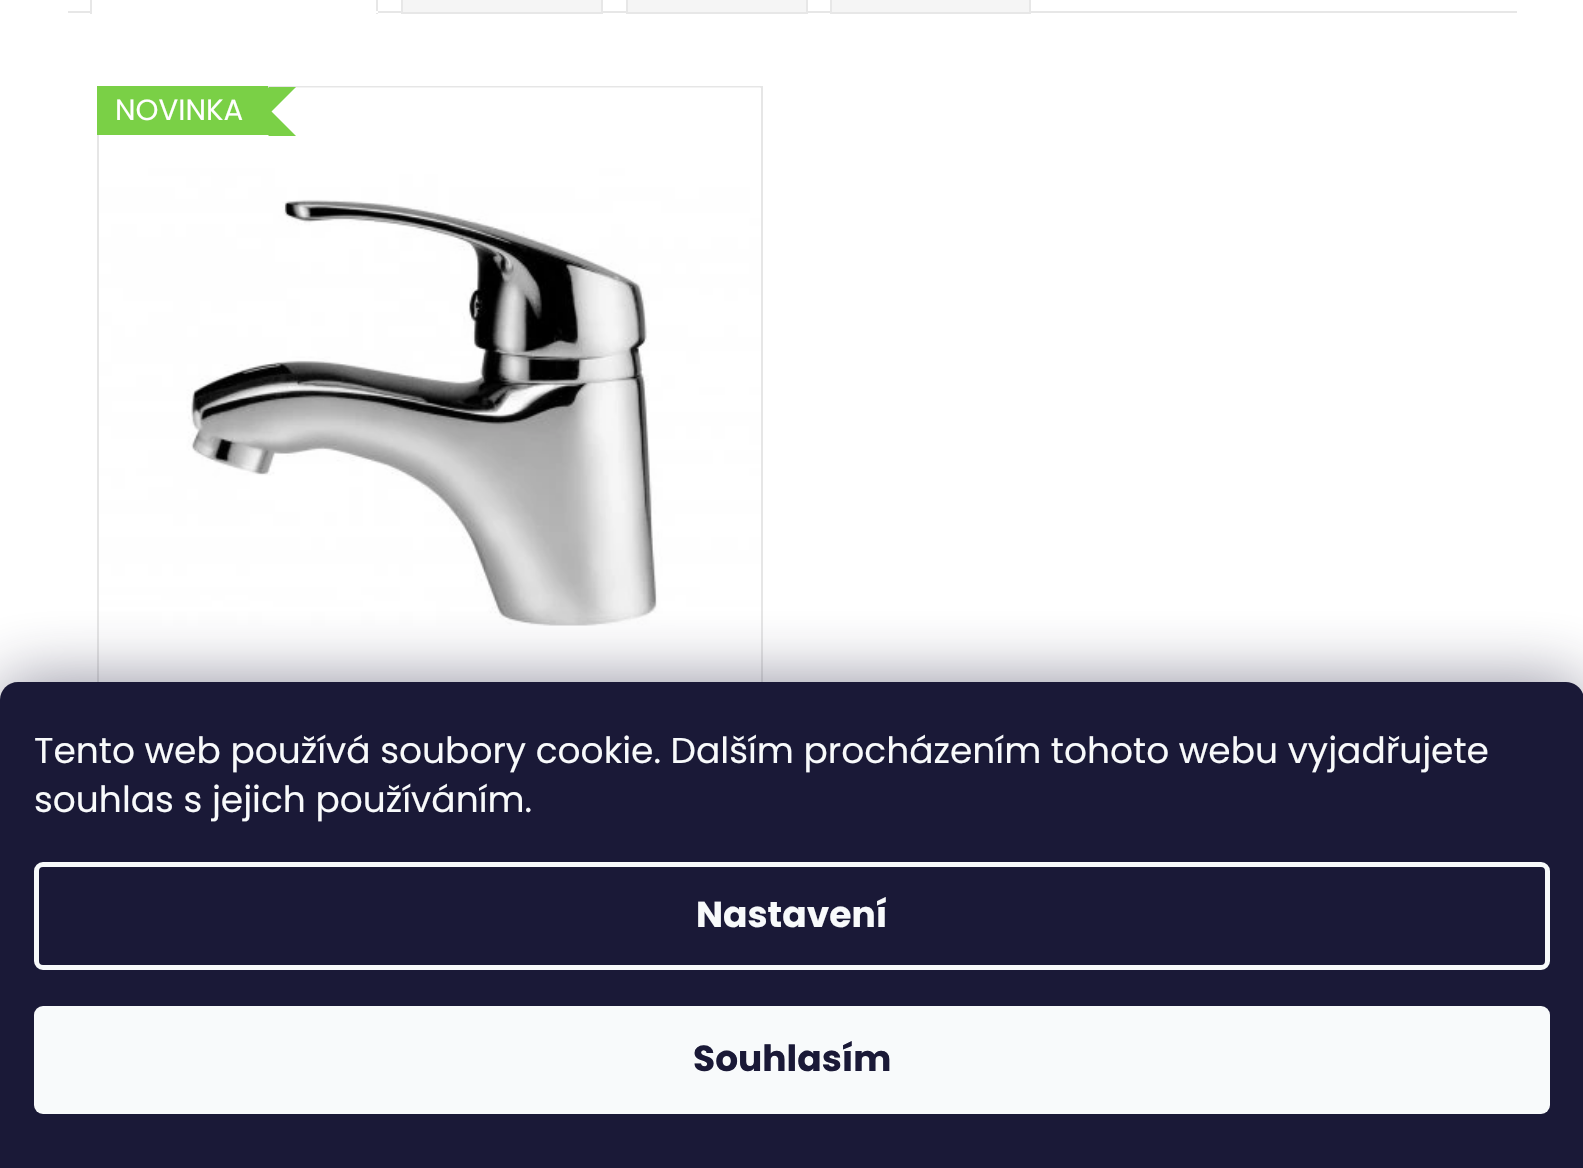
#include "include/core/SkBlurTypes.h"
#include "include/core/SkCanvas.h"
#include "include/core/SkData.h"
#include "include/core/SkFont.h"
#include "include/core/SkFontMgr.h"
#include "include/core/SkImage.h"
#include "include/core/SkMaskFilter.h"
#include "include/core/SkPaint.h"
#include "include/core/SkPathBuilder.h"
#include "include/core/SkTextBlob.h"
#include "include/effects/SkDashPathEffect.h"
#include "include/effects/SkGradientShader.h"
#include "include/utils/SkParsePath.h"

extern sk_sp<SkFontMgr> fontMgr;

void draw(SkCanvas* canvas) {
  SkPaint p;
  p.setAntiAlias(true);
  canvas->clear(SK_ColorWHITE);
  p.setColor(SkColorSetRGB(231, 231, 231));
  canvas->drawRect(SkRect::MakeLTRB(68, 11, 1517, 13), p);
  p.setColor(SK_ColorWHITE);
  canvas->drawRect(SkRect::MakeLTRB(92, 11, 376, 13), p);
  p.setColor(SkColorSetRGB(231, 231, 231));
  canvas->drawRect(SkRect::MakeLTRB(376, 0, 378, 14), p);
  p.setColor(SK_ColorWHITE);
  canvas->drawRect(SkRect::MakeLTRB(90, 11, 378, 13), p);
  p.setColor(SkColorSetRGB(231, 231, 231));
  canvas->drawRect(SkRect::MakeLTRB(90, 0, 92, 14), p);
  p.setColor(SkColorSetRGB(245, 245, 245));
  canvas->drawRect(SkRect::MakeLTRB(402, -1, 602, 13), p);
  p.setStyle(SkPaint::kStroke_Style);
  p.setStrokeWidth(2);
  p.setColor(SkColorSetRGB(231, 231, 231));
  canvas->drawRect(SkRect::MakeLTRB(402, -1, 602, 13), p);
  p.setStyle(SkPaint::kFill_Style);
  p.setColor(SkColorSetRGB(245, 245, 245));
  canvas->drawRect(SkRect::MakeLTRB(627, -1, 807, 13), p);
  p.setStyle(SkPaint::kStroke_Style);
  p.setColor(SkColorSetRGB(231, 231, 231));
  canvas->drawRect(SkRect::MakeLTRB(627, -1, 807, 13), p);
  p.setStyle(SkPaint::kFill_Style);
  p.setColor(SkColorSetRGB(245, 245, 245));
  canvas->drawRect(SkRect::MakeLTRB(831, -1, 1030, 13), p);
  p.setStyle(SkPaint::kStroke_Style);
  p.setColor(SkColorSetRGB(231, 231, 231));
  canvas->drawRect(SkRect::MakeLTRB(831, -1, 1030, 13), p);
  p.setColor(SkColorSetRGB(230, 230, 230));
  canvas->drawRect(SkRect::MakeLTRB(98, 87, 762, 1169), p);
  canvas->drawImageRect(SkImages::DeferredFromEncodedData(SkData::MakeFromFileName("images/1.png")), SkRect::MakeLTRB(99, 87, 761, 626), SkSamplingOptions());
  p.setStyle(SkPaint::kFill_Style);
  p.setColor(SkColorSetRGB(122, 208, 70));
  canvas->drawRect(SkRect::MakeLTRB(97, 86, 268, 135), p);
  p.setColor(SkColorSetARGB(128, 27, 25, 57));
  p.setMaskFilter(SkMaskFilter::MakeBlur(kNormal_SkBlurStyle, 34));
  canvas->drawRoundRect(SkRect::MakeLTRB(0, 682, 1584, 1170), 18, 18, p);
  p.setMaskFilter(nullptr);
  p.setColor(SkColorSetRGB(26, 25, 55));
  canvas->drawPath(SkPathBuilder().moveTo(18, 682).lineTo(1566, 682).cubicTo(1576, 682, 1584, 690, 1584, 700).lineTo(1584, 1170).lineTo(0, 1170).lineTo(0, 700).cubicTo(0, 690, 8, 682, 18, 682).close().detach(), p);
  p.setStyle(SkPaint::kStroke_Style);
  p.setStrokeWidth(5);
  p.setColor(SkColorSetRGB(248, 250, 251));
  canvas->drawRoundRect(SkRect::MakeLTRB(36.5f, 864.5f, 1547.5f, 967.5f), 6.5f, 6.5f, p);
  p.setStyle(SkPaint::kFill_Style);
  canvas->drawRoundRect(SkRect::MakeLTRB(34, 1006, 1550, 1114), 9, 9, p);
  SkFont font1(fontMgr->matchFamilyStyle("Poppins", SkFontStyle::Normal()), 29.25f);
  font1.setSubpixel(true);
  p.setColor(SK_ColorWHITE);
  canvas->drawString("NOVINKA", 115, 120, font1, p);
  p.setColor(SkColorSetRGB(122, 208, 70));
  canvas->drawPath(SkPathBuilder().moveTo(242, 109).lineTo(269, 109).lineTo(296, 136).lineTo(269, 136).close().detach(), p);
  canvas->drawPath(SkPathBuilder().moveTo(269, 87).lineTo(296, 87).lineTo(269, 114).lineTo(242, 114).close().detach(), p);
  SkFont font2(fontMgr->matchFamilyStyle("Poppins", SkFontStyle::Normal()), 36);
  font2.setSubpixel(true);
  p.setColor(SkColorSetRGB(248, 250, 251));
  canvas->drawString("Tento web používá soubory cookie. Dalším procházením tohoto webu vyjadřujete", 34, 763, font2, p);
  canvas->drawString("souhlas s jejich používáním.", 34, 812, font2, p);
  SkFont font3(fontMgr->matchFamilyStyle("Poppins", SkFontStyle::Bold()), 36);
  font3.setSubpixel(true);
  canvas->drawString("Nastavení", 696, 927, font3, p);
  p.setColor(SkColorSetRGB(26, 25, 55));
  canvas->drawString("Souhlasím", 693, 1071, font3, p);
}
